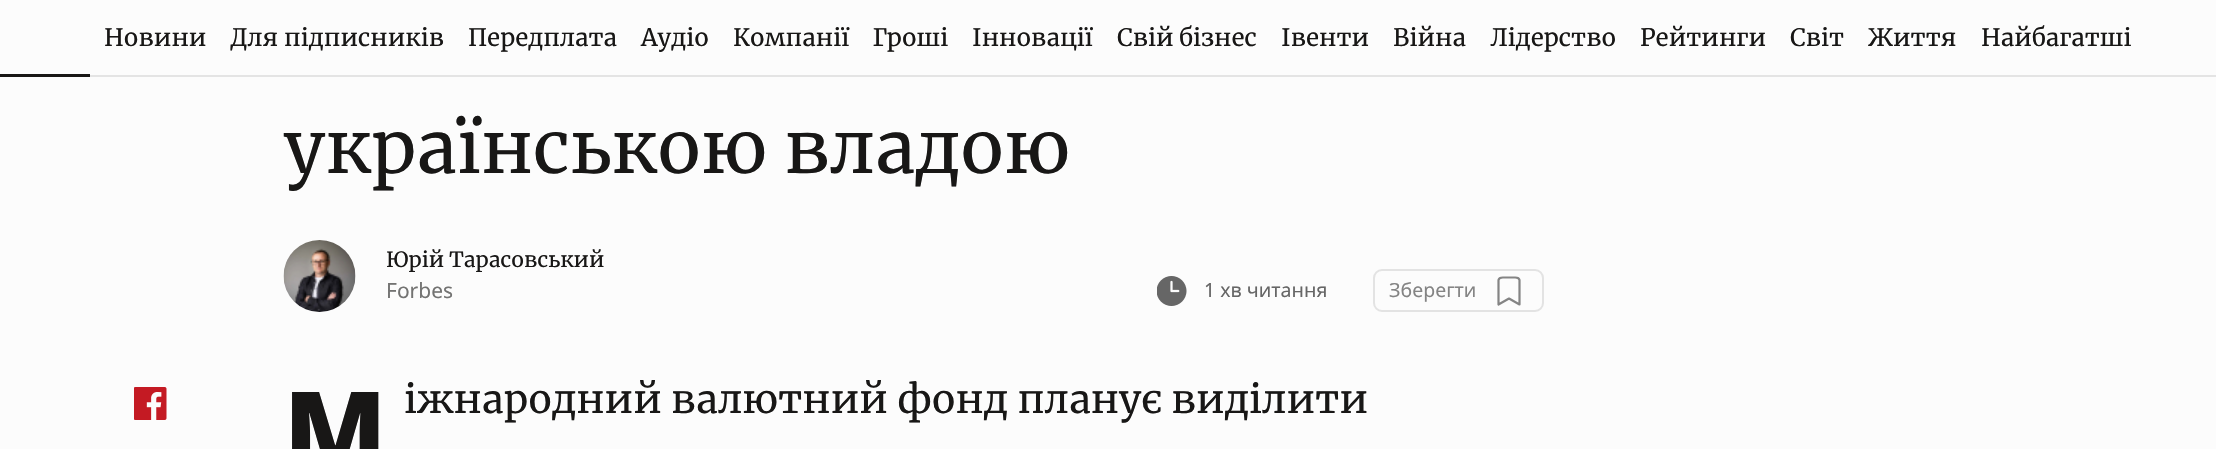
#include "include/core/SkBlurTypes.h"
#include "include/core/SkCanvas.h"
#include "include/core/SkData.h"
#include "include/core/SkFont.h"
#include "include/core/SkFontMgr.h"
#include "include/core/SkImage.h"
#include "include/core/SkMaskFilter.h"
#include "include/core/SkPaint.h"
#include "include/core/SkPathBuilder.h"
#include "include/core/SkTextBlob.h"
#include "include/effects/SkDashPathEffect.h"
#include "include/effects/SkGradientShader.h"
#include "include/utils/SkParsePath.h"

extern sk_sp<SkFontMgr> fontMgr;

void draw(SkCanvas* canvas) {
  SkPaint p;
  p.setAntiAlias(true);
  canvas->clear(SkColorSetRGB(252, 252, 252));
  p.setColor(SkColorSetRGB(24, 23, 22));
  canvas->drawRect(SkRect::MakeLTRB(0, 74, 90, 77), p);
  p.setColor(SkColorSetARGB(26, 24, 23, 22));
  canvas->drawRect(SkRect::MakeLTRB(90, 75, 2216, 77), p);
  canvas->drawImageRect(SkImages::DeferredFromEncodedData(SkData::MakeFromFileName("images/1.png")), SkRect::MakeLTRB(283, 240, 356, 312), SkSamplingOptions());
  canvas->drawImageRect(SkImages::DeferredFromEncodedData(SkData::MakeFromFileName("images/2.png")), SkRect::MakeLTRB(1157, 276, 1187, 306), SkSamplingOptions());
  p.setStyle(SkPaint::kStroke_Style);
  p.setStrokeWidth(2);
  p.setColor(SkColorSetRGB(227, 227, 227));
  canvas->drawRoundRect(SkRect::MakeLTRB(1374, 270, 1543, 311), 8, 8, p);
  p.setStrokeWidth(2.2f);
  p.setStrokeCap(SkPaint::kRound_Cap);
  p.setStrokeJoin(SkPaint::kRound_Join);
  p.setColor(SkColorSetRGB(132, 132, 132));
  canvas->drawPath(SkPathBuilder().moveTo(1519.5f, 304.5f).lineTo(1509, 298.5f).lineTo(1498.5f, 304.5f).lineTo(1498.5f, 280).cubicTo(1499, 277, 1502, 277.5f, 1504, 277.5f).lineTo(1514, 277.5f).cubicTo(1516, 277.5f, 1519, 277, 1519.5f, 280).close().detach(), p);
  canvas->drawImageRect(SkImages::DeferredFromEncodedData(SkData::MakeFromFileName("images/3.png")), SkRect::MakeLTRB(134, 387, 167, 420), SkSamplingOptions());
  SkFont font1(fontMgr->matchFamilyStyle("Merriweather", SkFontStyle::Normal()), 24);
  font1.setSubpixel(true);
  p.setStyle(SkPaint::kFill_Style);
  p.setColor(SkColorSetRGB(24, 23, 22));
  canvas->drawString("Новини", 104, 46, font1, p);
  canvas->drawString("Для підписників", 230, 46, font1, p);
  canvas->drawString("Передплата", 468, 46, font1, p);
  canvas->drawString("Аудіо", 641, 46, font1, p);
  canvas->drawString("Компанії", 733, 46, font1, p);
  canvas->drawString("Гроші", 873, 46, font1, p);
  canvas->drawString("Інновації", 972, 46, font1, p);
  canvas->drawString("Свій бізнес", 1117, 46, font1, p);
  canvas->drawString("Івенти", 1281, 46, font1, p);
  canvas->drawString("Війна", 1393, 46, font1, p);
  canvas->drawString("Лідерство", 1490, 46, font1, p);
  canvas->drawString("Рейтинги", 1640, 46, font1, p);
  canvas->drawString("Світ", 1790, 46, font1, p);
  canvas->drawString("Життя", 1868, 46, font1, p);
  canvas->drawString("Найбагатші", 1981, 46, font1, p);
  SkFont font2(fontMgr->matchFamilyStyle("Merriweather", SkFontStyle::Normal()), 72);
  font2.setSubpixel(true);
  canvas->drawString("українською владою", 284, 173, font2, p);
  SkFont font3(fontMgr->matchFamilyStyle("Merriweather", SkFontStyle::Normal()), 21);
  font3.setSubpixel(true);
  canvas->drawString("Юрій Тарасовський", 386, 267, font3, p);
  SkFont font4(fontMgr->matchFamilyStyle("Noto Sans", SkFontStyle::Normal()), 21);
  font4.setSubpixel(true);
  p.setColor(SkColorSetRGB(115, 115, 114));
  canvas->drawString("Forbes", 386, 298, font4, p);
  SkFont font5(fontMgr->matchFamilyStyle("Noto Sans", SkFontStyle::Normal()), 19.5f);
  font5.setSubpixel(true);
  p.setColor(SkColorSetRGB(102, 102, 102));
  canvas->drawString("1 хв читання", 1204, 297, font5, p);
  p.setColor(SkColorSetRGB(132, 132, 132));
  canvas->drawString("Зберегти", 1389, 297, font5, p);
  SkFont font6(fontMgr->matchFamilyStyle("Noto Sans", SkFontStyle(900, SkFontStyle::kNormal_Width, SkFontStyle::kUpright_Slant)), 105);
  font6.setSubpixel(true);
  p.setColor(SkColorSetRGB(24, 23, 22));
  canvas->drawString("М", 284, 467, font6, p);
  SkFont font7(fontMgr->matchFamilyStyle("Merriweather", SkFontStyle::Normal()), 39);
  font7.setSubpixel(true);
  canvas->drawString("іжнародний валютний фонд планує виділити", 404, 413, font7, p);
}
